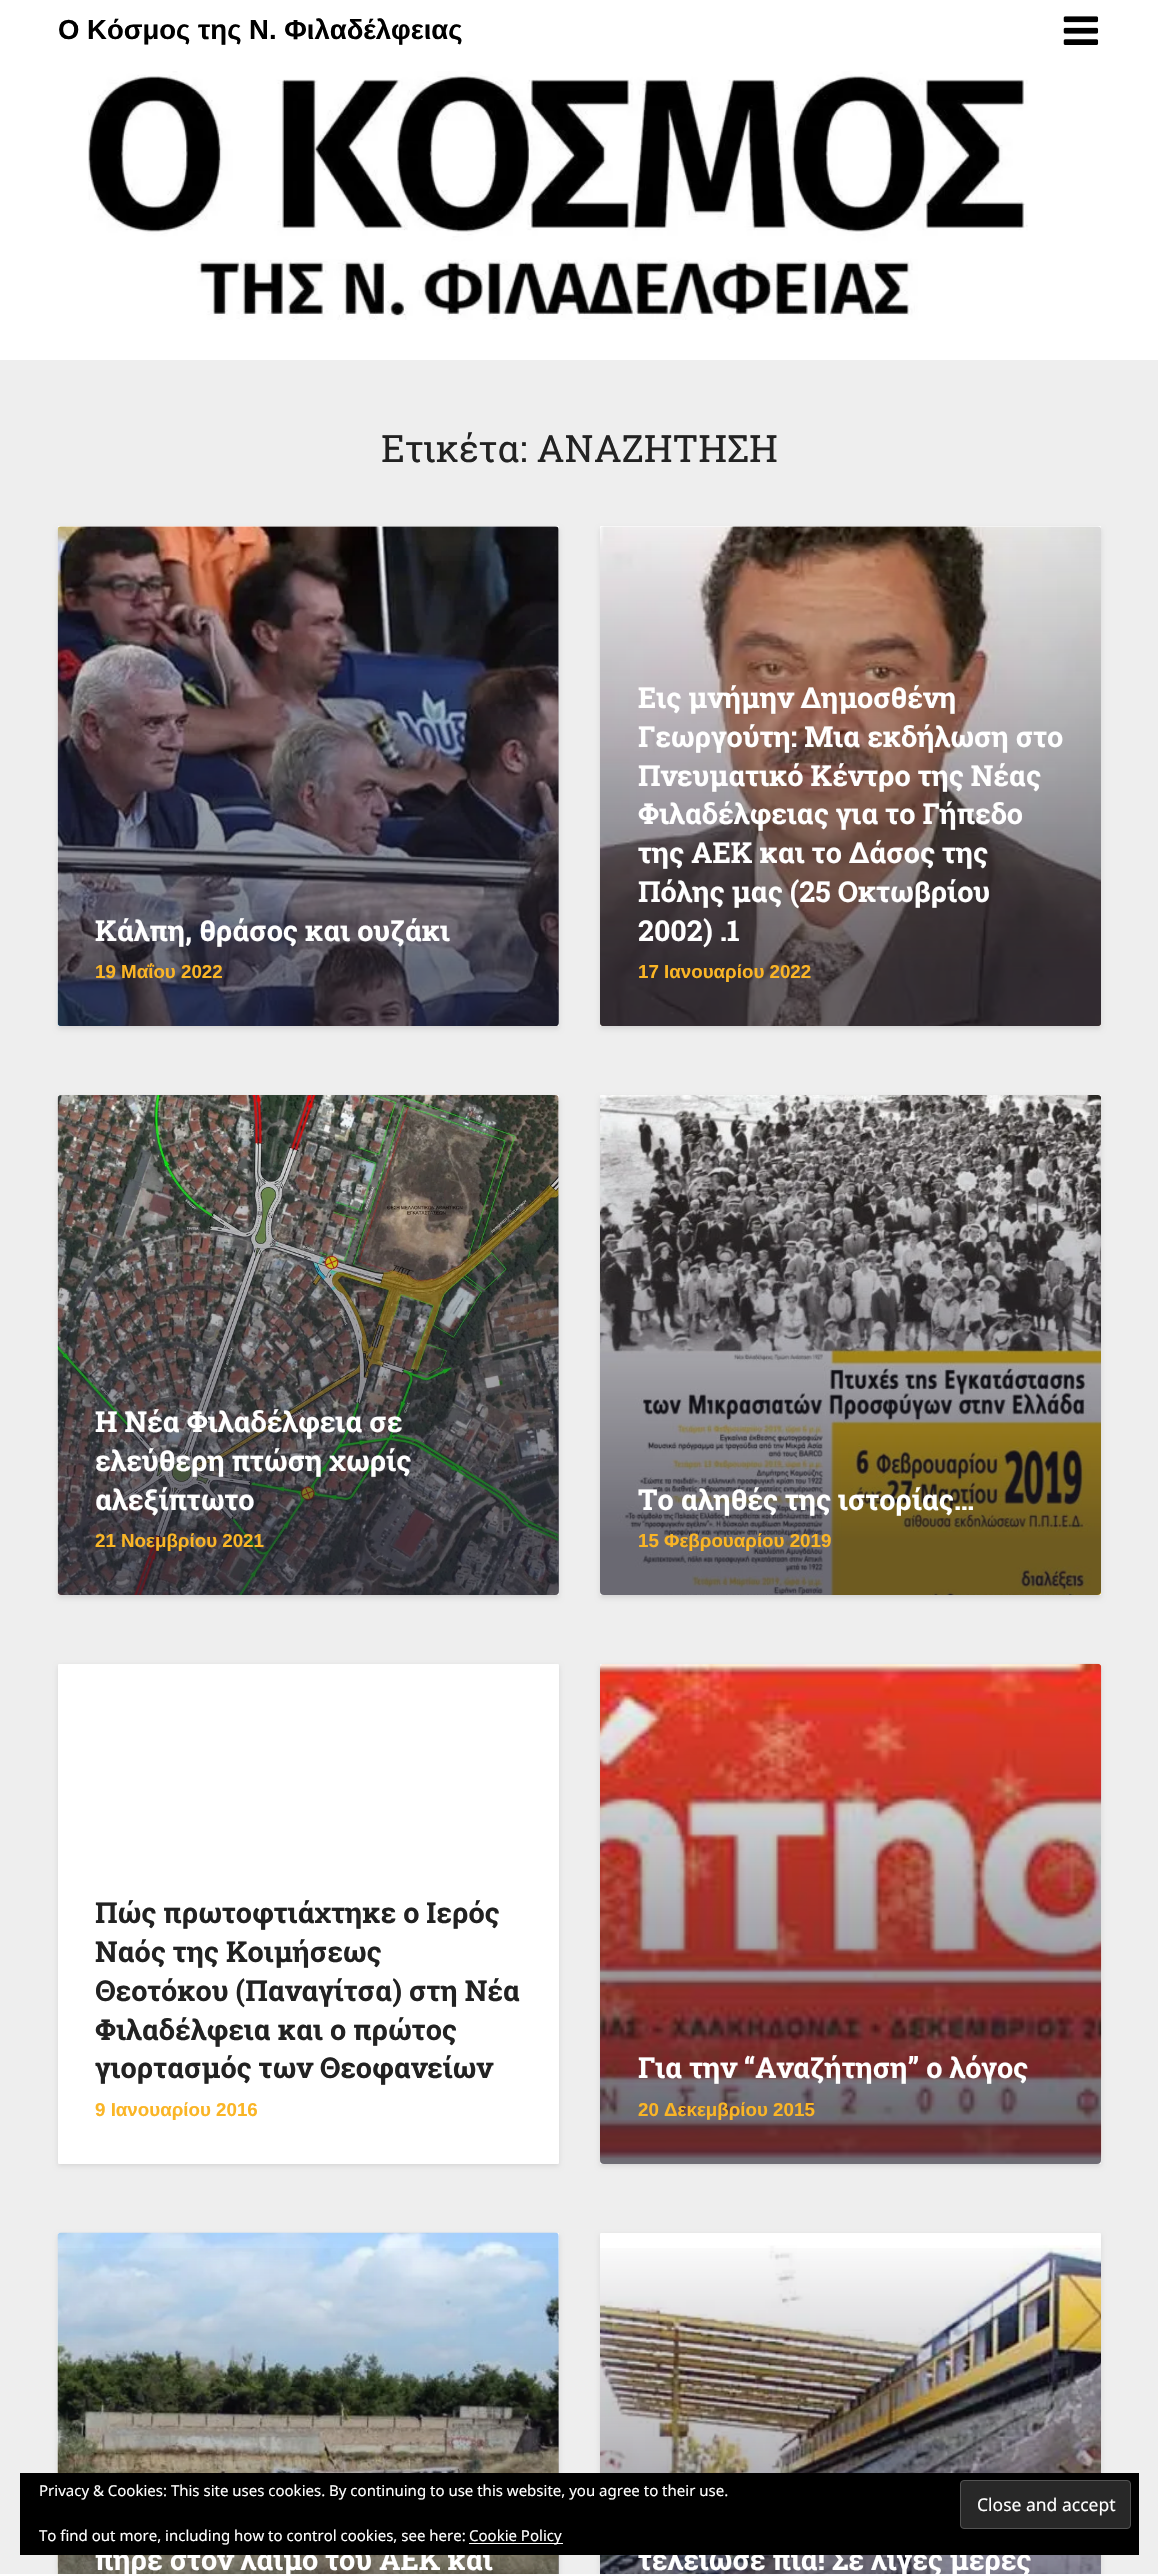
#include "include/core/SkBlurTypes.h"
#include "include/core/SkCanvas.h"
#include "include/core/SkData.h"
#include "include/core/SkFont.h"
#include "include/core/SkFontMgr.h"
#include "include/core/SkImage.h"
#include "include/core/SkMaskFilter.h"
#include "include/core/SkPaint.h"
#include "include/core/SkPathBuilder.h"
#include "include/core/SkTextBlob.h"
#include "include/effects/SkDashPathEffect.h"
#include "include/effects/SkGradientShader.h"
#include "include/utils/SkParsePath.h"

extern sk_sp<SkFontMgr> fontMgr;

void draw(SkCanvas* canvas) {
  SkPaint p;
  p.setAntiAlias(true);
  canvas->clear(SkColorSetRGB(238, 238, 238));
  p.setColor(SK_ColorWHITE);
  canvas->drawRect(SkRect::MakeLTRB(0, 0, 1158, 360), p);
  canvas->drawImageRect(SkImages::DeferredFromEncodedData(SkData::MakeFromFileName("images/1.png")), SkRect::MakeLTRB(1063, 16, 1099, 45), SkSamplingOptions());
  canvas->drawImageRect(SkImages::DeferredFromEncodedData(SkData::MakeFromFileName("images/2.png")), SkRect::MakeLTRB(88, 71, 1028, 320), SkSamplingOptions());
  p.setColor(SkColorSetARGB(26, 0, 0, 0));
  p.setMaskFilter(SkMaskFilter::MakeBlur(kNormal_SkBlurStyle, 2.5f));
  canvas->drawRoundRect(SkRect::MakeLTRB(58, 529, 559, 1029), 1, 1, p);
  p.setMaskFilter(nullptr);
  p.setColor(SK_ColorWHITE);
  canvas->drawRoundRect(SkRect::MakeLTRB(58, 526, 559, 1026), 1, 1, p);
  canvas->drawImageRect(SkImages::DeferredFromEncodedData(SkData::MakeFromFileName("images/3.png")), SkRect::MakeLTRB(57, 526, 559, 1026), SkSamplingOptions());
  {
    const SkColor colors[] = {SkColorSetARGB(0, 32, 30, 44), SkColorSetARGB(163, 32, 30, 44), SkColorSetARGB(166, 32, 30, 44)};
    const float stops[] = {0, 0.88f, 0.89f};
    const SkPoint ends[] = {{308, 526}, {308, 1026}};
    p.setShader(SkGradientShader::MakeLinear(ends, colors, stops, 3, SkTileMode::kClamp));
    p.setAlpha(255);
  }
  canvas->drawRoundRect(SkRect::MakeLTRB(58, 526, 559, 1026), 4, 4, p);
  p.setShader(nullptr);
  p.setColor(SkColorSetARGB(26, 0, 0, 0));
  p.setMaskFilter(SkMaskFilter::MakeBlur(kNormal_SkBlurStyle, 2.5f));
  canvas->drawRoundRect(SkRect::MakeLTRB(600, 529, 1101, 1029), 1, 1, p);
  p.setMaskFilter(nullptr);
  p.setColor(SK_ColorWHITE);
  canvas->drawRoundRect(SkRect::MakeLTRB(600, 526, 1101, 1026), 1, 1, p);
  canvas->drawImageRect(SkImages::DeferredFromEncodedData(SkData::MakeFromFileName("images/4.png")), SkRect::MakeLTRB(600, 526, 1101, 1026), SkSamplingOptions());
  {
    const SkColor colors[] = {SkColorSetARGB(0, 32, 30, 44), SkColorSetARGB(163, 32, 30, 44), SkColorSetARGB(166, 32, 30, 44)};
    const float stops[] = {0, 0.88f, 0.89f};
    const SkPoint ends[] = {{851, 526}, {851, 1026}};
    p.setShader(SkGradientShader::MakeLinear(ends, colors, stops, 3, SkTileMode::kClamp));
    p.setAlpha(255);
  }
  canvas->drawRoundRect(SkRect::MakeLTRB(600, 526, 1101, 1026), 4, 4, p);
  p.setShader(nullptr);
  p.setColor(SkColorSetARGB(26, 0, 0, 0));
  p.setMaskFilter(SkMaskFilter::MakeBlur(kNormal_SkBlurStyle, 2.5f));
  canvas->drawRoundRect(SkRect::MakeLTRB(58, 1098, 559, 1598), 1, 1, p);
  p.setMaskFilter(nullptr);
  p.setColor(SK_ColorWHITE);
  canvas->drawRoundRect(SkRect::MakeLTRB(58, 1095, 559, 1595), 1, 1, p);
  canvas->drawImageRect(SkImages::DeferredFromEncodedData(SkData::MakeFromFileName("images/5.png")), SkRect::MakeLTRB(57, 1095, 559, 1595), SkSamplingOptions());
  {
    const SkColor colors[] = {SkColorSetARGB(0, 32, 30, 44), SkColorSetARGB(163, 32, 30, 44), SkColorSetARGB(166, 32, 30, 44)};
    const float stops[] = {0, 0.88f, 0.89f};
    const SkPoint ends[] = {{308, 1095}, {308, 1595}};
    p.setShader(SkGradientShader::MakeLinear(ends, colors, stops, 3, SkTileMode::kClamp));
    p.setAlpha(255);
  }
  canvas->drawRoundRect(SkRect::MakeLTRB(58, 1095, 559, 1595), 4, 4, p);
  p.setShader(nullptr);
  p.setColor(SkColorSetARGB(26, 0, 0, 0));
  p.setMaskFilter(SkMaskFilter::MakeBlur(kNormal_SkBlurStyle, 2.5f));
  canvas->drawRoundRect(SkRect::MakeLTRB(600, 1098, 1101, 1598), 1, 1, p);
  p.setMaskFilter(nullptr);
  p.setColor(SK_ColorWHITE);
  canvas->drawRoundRect(SkRect::MakeLTRB(600, 1095, 1101, 1595), 1, 1, p);
  canvas->drawImageRect(SkImages::DeferredFromEncodedData(SkData::MakeFromFileName("images/6.png")), SkRect::MakeLTRB(600, 1095, 1101, 1595), SkSamplingOptions());
  {
    const SkColor colors[] = {SkColorSetARGB(0, 32, 30, 44), SkColorSetARGB(163, 32, 30, 44), SkColorSetARGB(166, 32, 30, 44)};
    const float stops[] = {0, 0.88f, 0.89f};
    const SkPoint ends[] = {{851, 1095}, {851, 1595}};
    p.setShader(SkGradientShader::MakeLinear(ends, colors, stops, 3, SkTileMode::kClamp));
    p.setAlpha(255);
  }
  canvas->drawRoundRect(SkRect::MakeLTRB(600, 1095, 1101, 1595), 4, 4, p);
  p.setShader(nullptr);
  p.setColor(SkColorSetARGB(26, 0, 0, 0));
  p.setMaskFilter(SkMaskFilter::MakeBlur(kNormal_SkBlurStyle, 2.5f));
  canvas->drawRoundRect(SkRect::MakeLTRB(58, 1666, 559, 2166), 1, 1, p);
  p.setMaskFilter(nullptr);
  p.setColor(SK_ColorWHITE);
  canvas->drawRoundRect(SkRect::MakeLTRB(58, 1664, 559, 2164), 1, 1, p);
  p.setColor(SkColorSetARGB(26, 0, 0, 0));
  p.setMaskFilter(SkMaskFilter::MakeBlur(kNormal_SkBlurStyle, 2.5f));
  canvas->drawRoundRect(SkRect::MakeLTRB(600, 1666, 1101, 2166), 1, 1, p);
  p.setMaskFilter(nullptr);
  p.setColor(SK_ColorWHITE);
  canvas->drawRoundRect(SkRect::MakeLTRB(600, 1664, 1101, 2164), 1, 1, p);
  canvas->drawImageRect(SkImages::DeferredFromEncodedData(SkData::MakeFromFileName("images/7.png")), SkRect::MakeLTRB(600, 1663, 1102, 2164), SkSamplingOptions());
  {
    const SkColor colors[] = {SkColorSetARGB(0, 32, 30, 44), SkColorSetARGB(163, 32, 30, 44), SkColorSetARGB(166, 32, 30, 44)};
    const float stops[] = {0, 0.88f, 0.89f};
    const SkPoint ends[] = {{851, 1664}, {851, 2164}};
    p.setShader(SkGradientShader::MakeLinear(ends, colors, stops, 3, SkTileMode::kClamp));
    p.setAlpha(255);
  }
  canvas->drawRoundRect(SkRect::MakeLTRB(600, 1664, 1101, 2164), 4, 4, p);
  p.setShader(nullptr);
  p.setColor(SkColorSetARGB(26, 0, 0, 0));
  p.setMaskFilter(SkMaskFilter::MakeBlur(kNormal_SkBlurStyle, 2.5f));
  canvas->drawRoundRect(SkRect::MakeLTRB(58, 2235, 559, 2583), 1, 1, p);
  p.setMaskFilter(nullptr);
  p.setColor(SK_ColorWHITE);
  canvas->drawRoundRect(SkRect::MakeLTRB(58, 2233, 559, 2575), 1, 1, p);
  canvas->drawImageRect(SkImages::DeferredFromEncodedData(SkData::MakeFromFileName("images/8.png")), SkRect::MakeLTRB(57, 2232, 559, 2574), SkSamplingOptions());
  {
    const SkColor colors[] = {SkColorSetARGB(0, 32, 30, 44), SkColorSetARGB(163, 32, 30, 44), SkColorSetARGB(166, 32, 30, 44)};
    const float stops[] = {0, 0.88f, 0.89f};
    const SkPoint ends[] = {{308, 2233}, {308, 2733}};
    p.setShader(SkGradientShader::MakeLinear(ends, colors, stops, 3, SkTileMode::kClamp));
    p.setAlpha(255);
  }
  canvas->drawRect(SkRect::MakeLTRB(58, 2248, 559, 2574), p);
  p.setShader(nullptr);
  p.setColor(SkColorSetARGB(26, 0, 0, 0));
  p.setMaskFilter(SkMaskFilter::MakeBlur(kNormal_SkBlurStyle, 2.5f));
  canvas->drawRoundRect(SkRect::MakeLTRB(600, 2235, 1101, 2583), 1, 1, p);
  p.setMaskFilter(nullptr);
  p.setColor(SK_ColorWHITE);
  canvas->drawRoundRect(SkRect::MakeLTRB(600, 2233, 1101, 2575), 1, 1, p);
  canvas->drawImageRect(SkImages::DeferredFromEncodedData(SkData::MakeFromFileName("images/9.png")), SkRect::MakeLTRB(600, 2245, 1101, 2574), SkSamplingOptions());
  {
    const SkColor colors[] = {SkColorSetARGB(0, 32, 30, 44), SkColorSetARGB(163, 32, 30, 44), SkColorSetARGB(166, 32, 30, 44)};
    const float stops[] = {0, 0.88f, 0.89f};
    const SkPoint ends[] = {{851, 2233}, {851, 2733}};
    p.setShader(SkGradientShader::MakeLinear(ends, colors, stops, 3, SkTileMode::kClamp));
    p.setAlpha(255);
  }
  canvas->drawRect(SkRect::MakeLTRB(600, 2248, 1101, 2574), p);
  SkFont font1(fontMgr->matchFamilyStyle("Liberation Sans", SkFontStyle::Bold()), 27.5f);
  font1.setSubpixel(true);
  p.setShader(nullptr);
  p.setColor(SK_ColorBLACK);
  canvas->drawString("Ο Κόσμος της Ν. Φιλαδέλφειας", 58, 39, font1, p);
  SkFont font2(fontMgr->matchFamilyStyle("Roboto Slab", SkFontStyle::Normal()), 37.5f);
  font2.setSubpixel(true);
  p.setColor(SkColorSetRGB(34, 34, 34));
  canvas->drawString("Ετικέτα: ΑΝΑΖΗΤΗΣΗ", 381, 462, font2, p);
  SkFont font3(fontMgr->matchFamilyStyle("Roboto Slab", SkFontStyle::Bold()), 28.75f);
  font3.setSubpixel(true);
  p.setColor(SK_ColorWHITE);
  canvas->drawString("Κάλπη, θράσος και ουζάκι", 95, 941, font3, p);
  SkFont font4(fontMgr->matchFamilyStyle("Liberation Sans", SkFontStyle::Bold()), 18.75f);
  font4.setSubpixel(true);
  p.setColor(SkColorSetRGB(250, 181, 38));
  canvas->drawString("19 Μαΐου 2022", 95, 978, font4, p);
  p.setColor(SK_ColorWHITE);
  canvas->drawString("Εις μνήμην Δημοσθένη", 638, 708, font3, p);
  canvas->drawString("Γεωργούτη: Μια εκδήλωση στο", 638, 747, font3, p);
  canvas->drawString("Πνευματικό Κέντρο της Νέας", 638, 786, font3, p);
  canvas->drawString("Φιλαδέλφειας για το Γήπεδο", 638, 824, font3, p);
  canvas->drawString("της ΑΕΚ και το Δάσος της", 638, 863, font3, p);
  canvas->drawString("Πόλης μας (25 Οκτωβρίου", 638, 902, font3, p);
  canvas->drawString("2002) .1", 638, 941, font3, p);
  p.setColor(SkColorSetRGB(250, 181, 38));
  canvas->drawString("17 Ιανουαρίου 2022", 638, 978, font4, p);
  p.setColor(SK_ColorWHITE);
  canvas->drawString("Η Νέα Φιλαδέλφεια σε", 95, 1432, font3, p);
  canvas->drawString("ελεύθερη πτώση χωρίς", 95, 1471, font3, p);
  canvas->drawString("αλεξίπτωτο", 95, 1510, font3, p);
  p.setColor(SkColorSetRGB(250, 181, 38));
  canvas->drawString("21 Νοεμβρίου 2021", 95, 1547, font4, p);
  p.setColor(SK_ColorWHITE);
  canvas->drawString("Το αληθές της ιστορίας…", 638, 1510, font3, p);
  p.setColor(SkColorSetRGB(250, 181, 38));
  canvas->drawString("15 Φεβρουαρίου 2019", 638, 1547, font4, p);
  p.setColor(SkColorSetRGB(34, 34, 34));
  canvas->drawString("Πώς πρωτοφτιάχτηκε ο Ιερός", 95, 1923, font3, p);
  canvas->drawString("Ναός της Κοιμήσεως", 95, 1962, font3, p);
  canvas->drawString("Θεοτόκου (Παναγίτσα) στη Νέα", 95, 2001, font3, p);
  canvas->drawString("Φιλαδέλφεια και ο πρώτος", 95, 2040, font3, p);
  canvas->drawString("γιορτασμός των Θεοφανείων", 95, 2078, font3, p);
  p.setColor(SkColorSetRGB(250, 181, 38));
  canvas->drawString("9 Ιανουαρίου 2016", 95, 2116, font4, p);
  p.setColor(SK_ColorWHITE);
  canvas->drawString("Για την “Αναζήτηση” ο λόγος", 638, 2078, font3, p);
  p.setColor(SkColorSetRGB(250, 181, 38));
  canvas->drawString("20 Δεκεμβρίου 2015", 638, 2116, font4, p);
  p.setColor(SK_ColorWHITE);
  canvas->drawString("πήρε στον λαιμό του ΑΕΚ και", 95, 2570, font3, p);
  canvas->drawString("τέλειωσε πια! Σε λίγες μέρες", 638, 2570, font3, p);
  p.setColor(SK_ColorBLACK);
  canvas->drawRect(SkRect::MakeLTRB(20, 2473, 1139, 2555), p);
  SkFont font5(fontMgr->matchFamilyStyle("Noto Sans", SkFontStyle::Normal()), 15);
  font5.setSubpixel(true);
  p.setColor(SK_ColorWHITE);
  canvas->drawString("Privacy & Cookies: This site uses cookies. By continuing to use this website, you agree to their use.", 39, 2496, font5, p);
  p.setColor(SkColorSetRGB(40, 40, 40));
  canvas->drawRoundRect(SkRect::MakeLTRB(960.5f, 2480.5f, 1130.5f, 2528.5f), 3.5f, 3.5f, p);
  p.setStyle(SkPaint::kStroke_Style);
  p.setStrokeWidth(1);
  p.setColor(SkColorSetRGB(83, 83, 83));
  canvas->drawRoundRect(SkRect::MakeLTRB(960.5f, 2480.5f, 1130.5f, 2528.5f), 3.5f, 3.5f, p);
  SkFont font6(fontMgr->matchFamilyStyle("Noto Sans", SkFontStyle::Normal()), 17.5f);
  font6.setSubpixel(true);
  p.setStyle(SkPaint::kFill_Style);
  p.setColor(SK_ColorWHITE);
  canvas->drawString("Close and accept", 977, 2511, font6, p);
  canvas->drawString("To find out more, including how to control cookies, see here:", 39, 2541, font5, p);
  canvas->drawRect(SkRect::MakeLTRB(469, 2543, 563, 2544), p);
  canvas->drawString("Cookie Policy", 469, 2541, font5, p);
}
